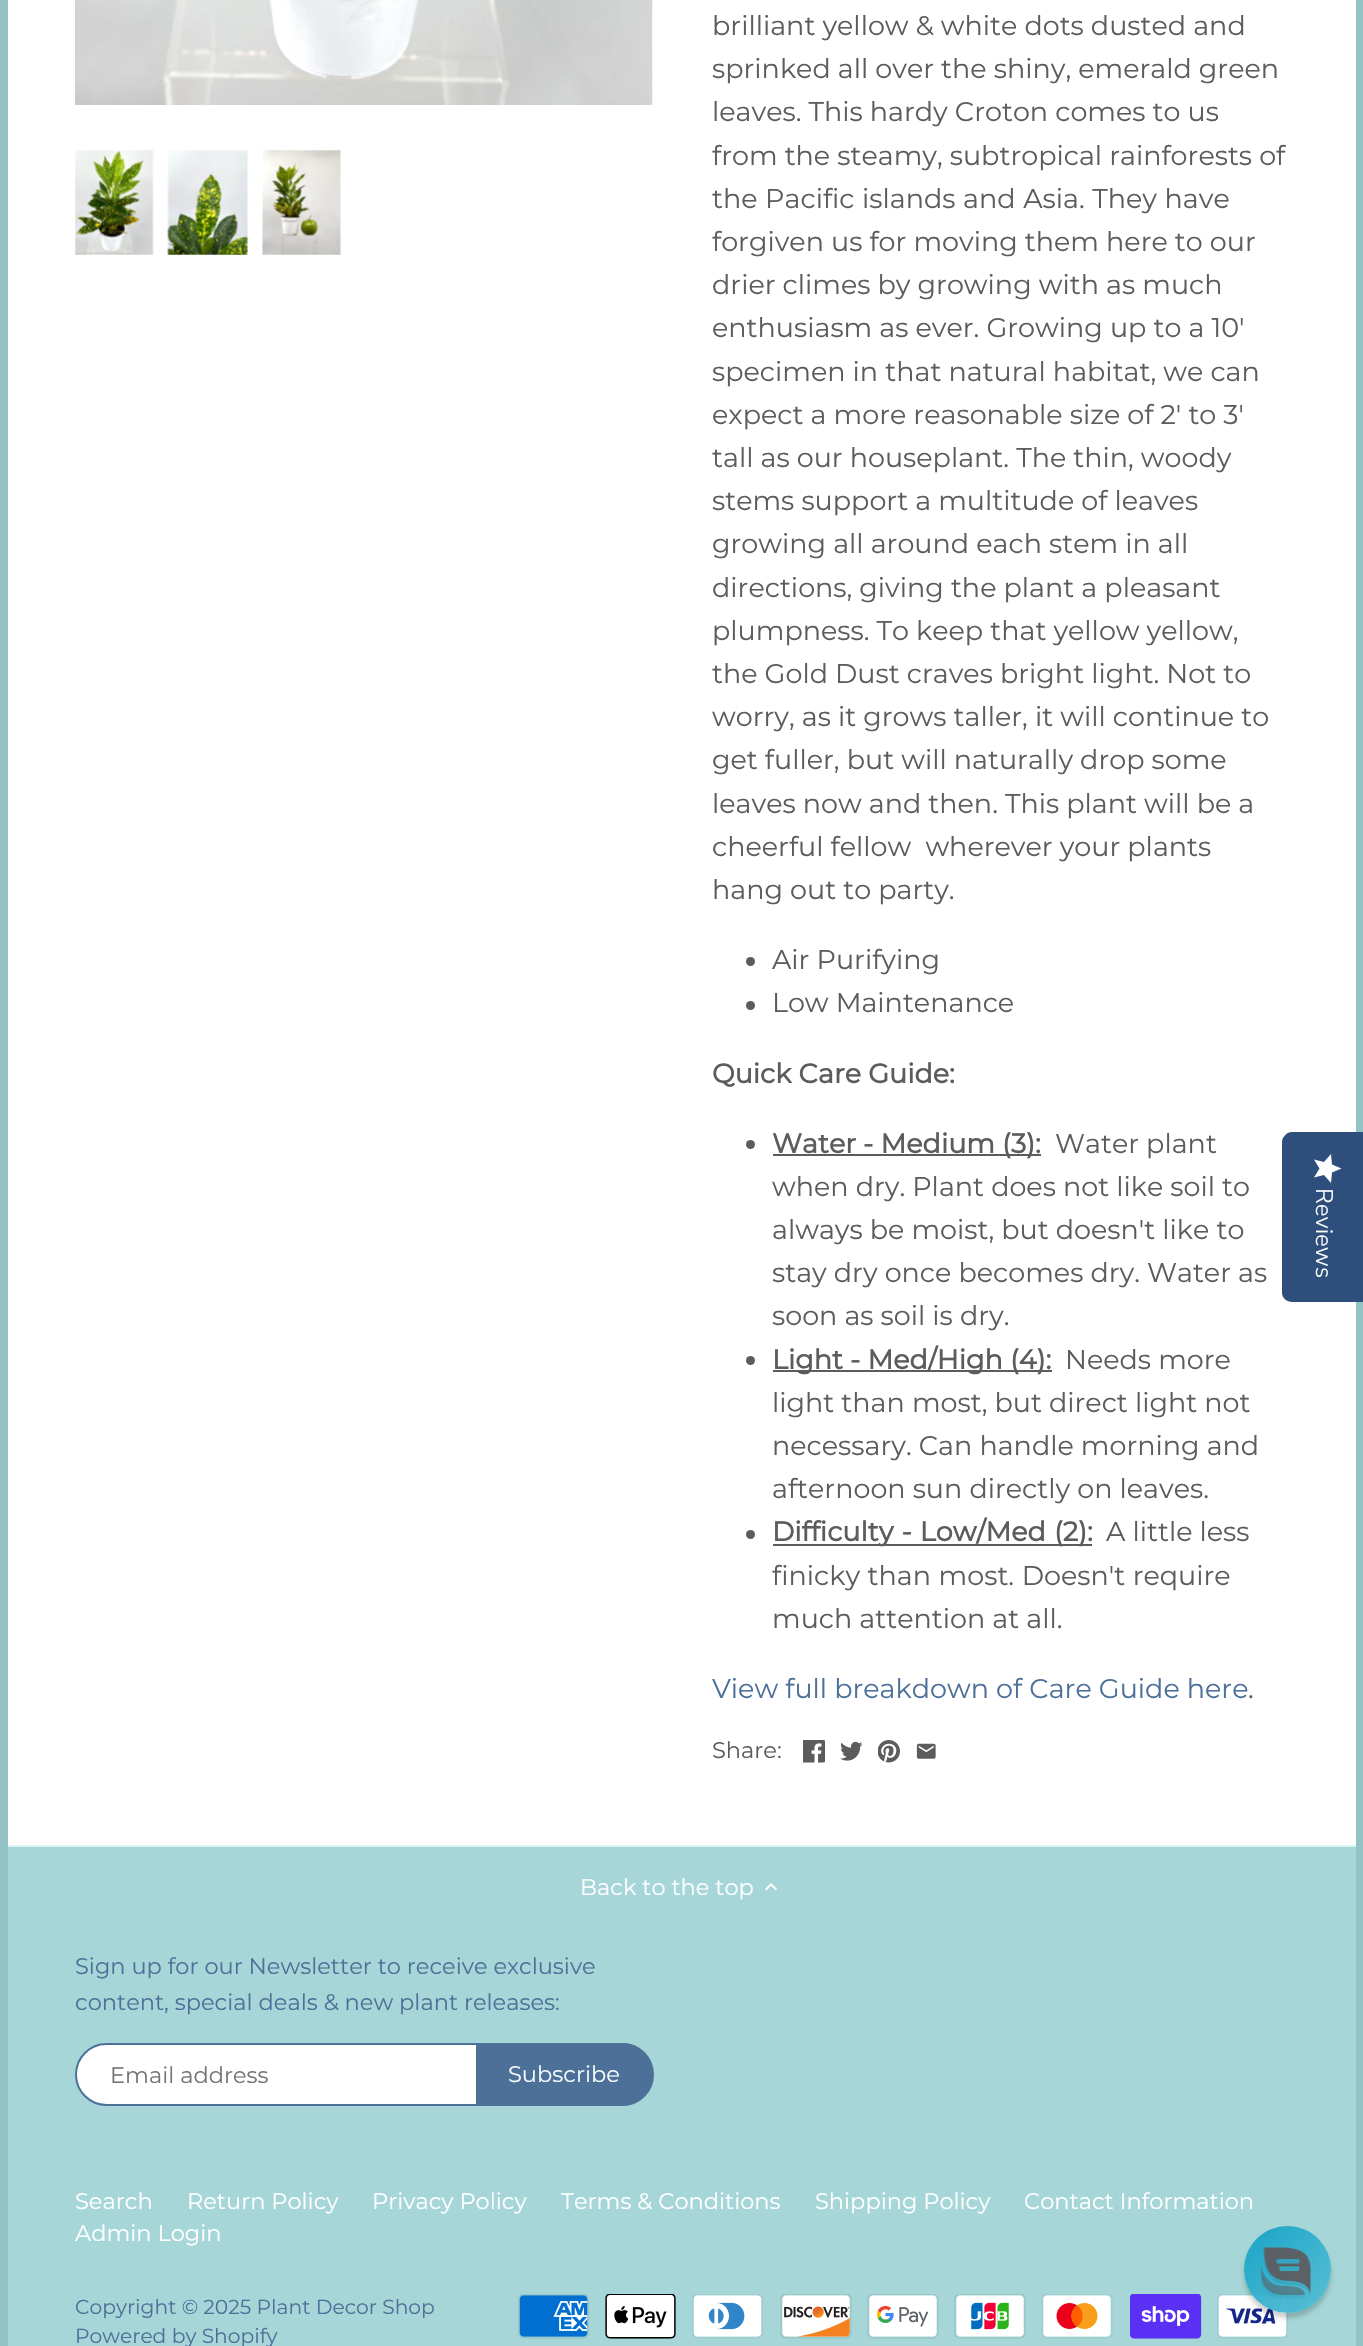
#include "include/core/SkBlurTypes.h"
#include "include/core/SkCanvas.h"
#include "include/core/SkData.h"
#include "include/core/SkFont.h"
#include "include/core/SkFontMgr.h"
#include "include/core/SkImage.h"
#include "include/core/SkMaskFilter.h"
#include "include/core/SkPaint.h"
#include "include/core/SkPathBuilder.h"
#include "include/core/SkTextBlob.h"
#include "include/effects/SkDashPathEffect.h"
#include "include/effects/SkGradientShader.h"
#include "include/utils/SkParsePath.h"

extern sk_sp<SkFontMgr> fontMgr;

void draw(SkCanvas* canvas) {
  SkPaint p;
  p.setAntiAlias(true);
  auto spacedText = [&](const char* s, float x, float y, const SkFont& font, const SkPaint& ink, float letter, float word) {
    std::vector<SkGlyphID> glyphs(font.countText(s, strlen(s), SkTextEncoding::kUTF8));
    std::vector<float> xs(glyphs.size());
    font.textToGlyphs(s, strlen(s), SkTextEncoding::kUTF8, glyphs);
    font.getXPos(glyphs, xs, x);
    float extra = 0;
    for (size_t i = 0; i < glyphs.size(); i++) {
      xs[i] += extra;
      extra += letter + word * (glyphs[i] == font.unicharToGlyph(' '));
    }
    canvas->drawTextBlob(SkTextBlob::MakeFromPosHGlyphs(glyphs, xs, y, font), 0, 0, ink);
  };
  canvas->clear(SkColorSetRGB(166, 214, 215));
  p.setStyle(SkPaint::kStroke_Style);
  p.setStrokeWidth(8);
  p.setColor(SkColorSetRGB(147, 195, 196));
  canvas->drawRect(SkRect::MakeLTRB(4, -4, 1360, 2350), p);
  p.setStyle(SkPaint::kFill_Style);
  p.setColor(SK_ColorWHITE);
  canvas->drawRect(SkRect::MakeLTRB(8, 0, 1356, 1845), p);
  canvas->drawImageRect(SkImages::DeferredFromEncodedData(SkData::MakeFromFileName("images/1.png")), SkRect::MakeLTRB(75, 0, 653, 105), SkSamplingOptions());
  canvas->drawImageRect(SkImages::DeferredFromEncodedData(SkData::MakeFromFileName("images/2.png")), SkRect::MakeLTRB(75, 150, 154, 255), SkSamplingOptions());
  canvas->drawImageRect(SkImages::DeferredFromEncodedData(SkData::MakeFromFileName("images/3.png")), SkRect::MakeLTRB(167, 150, 248, 255), SkSamplingOptions());
  canvas->drawImageRect(SkImages::DeferredFromEncodedData(SkData::MakeFromFileName("images/4.png")), SkRect::MakeLTRB(262, 150, 341, 255), SkSamplingOptions());
  p.setColor(SkColorSetRGB(92, 92, 95));
  canvas->drawCircle(750.5f, 961.5f, 4.5f, p);
  canvas->drawCircle(750.5f, 1005.5f, 4.5f, p);
  canvas->drawCircle(750.5f, 1144.5f, 4.5f, p);
  canvas->drawRect(SkRect::MakeLTRB(773, 1154, 1041, 1156), p);
  canvas->drawCircle(750.5f, 1360.5f, 4.5f, p);
  canvas->drawRect(SkRect::MakeLTRB(773, 1370, 1052, 1372), p);
  canvas->drawCircle(750.5f, 1534.5f, 4.5f, p);
  canvas->drawRect(SkRect::MakeLTRB(773, 1544, 1092, 1546), p);
  canvas->drawImageRect(SkImages::DeferredFromEncodedData(SkData::MakeFromFileName("images/5.png")), SkRect::MakeLTRB(803, 1740, 825, 1763), SkSamplingOptions());
  canvas->drawImageRect(SkImages::DeferredFromEncodedData(SkData::MakeFromFileName("images/6.png")), SkRect::MakeLTRB(840, 1741, 863, 1761), SkSamplingOptions());
  canvas->drawImageRect(SkImages::DeferredFromEncodedData(SkData::MakeFromFileName("images/7.png")), SkRect::MakeLTRB(878, 1740, 900, 1763), SkSamplingOptions());
  canvas->drawImageRect(SkImages::DeferredFromEncodedData(SkData::MakeFromFileName("images/8.png")), SkRect::MakeLTRB(916, 1743, 936, 1759), SkSamplingOptions());
  p.setColor(SkColorSetRGB(216, 244, 245));
  canvas->drawRect(SkRect::MakeLTRB(8, 1845, 1356, 1847), p);
  canvas->drawImageRect(SkImages::DeferredFromEncodedData(SkData::MakeFromFileName("images/9.png")), SkRect::MakeLTRB(765, 1883, 777, 1891), SkSamplingOptions());
  p.setColor(SK_ColorWHITE);
  canvas->drawRoundRect(SkRect::MakeLTRB(76, 2044, 652, 2105), 30.5f, 30.5f, p);
  p.setStyle(SkPaint::kStroke_Style);
  p.setStrokeWidth(2);
  p.setColor(SkColorSetRGB(77, 112, 153));
  canvas->drawRoundRect(SkRect::MakeLTRB(76, 2044, 652, 2105), 30.5f, 30.5f, p);
  p.setStyle(SkPaint::kFill_Style);
  canvas->drawPath(SkPathBuilder().moveTo(477, 2044).lineTo(622.5f, 2044).cubicTo(639.5f, 2044, 653, 2057.5f, 653, 2074.5f).cubicTo(653, 2091.5f, 639.5f, 2105, 622.5f, 2105).lineTo(477, 2105).close().detach(), p);
  p.setStyle(SkPaint::kStroke_Style);
  canvas->drawPath(SkPathBuilder().moveTo(477, 2044).lineTo(622.5f, 2044).cubicTo(639.5f, 2044, 653, 2057.5f, 653, 2074.5f).cubicTo(653, 2091.5f, 639.5f, 2105, 622.5f, 2105).lineTo(477, 2105).close().detach(), p);
  canvas->drawImageRect(SkImages::DeferredFromEncodedData(SkData::MakeFromFileName("images/10.png")), SkRect::MakeLTRB(518, 2294, 589, 2339), SkSamplingOptions());
  canvas->drawImageRect(SkImages::DeferredFromEncodedData(SkData::MakeFromFileName("images/11.png")), SkRect::MakeLTRB(605, 2294, 676, 2339), SkSamplingOptions());
  canvas->drawImageRect(SkImages::DeferredFromEncodedData(SkData::MakeFromFileName("images/12.png")), SkRect::MakeLTRB(692, 2294, 763, 2339), SkSamplingOptions());
  canvas->drawImageRect(SkImages::DeferredFromEncodedData(SkData::MakeFromFileName("images/13.png")), SkRect::MakeLTRB(780, 2294, 852, 2339), SkSamplingOptions());
  canvas->drawImageRect(SkImages::DeferredFromEncodedData(SkData::MakeFromFileName("images/14.png")), SkRect::MakeLTRB(867, 2294, 939, 2339), SkSamplingOptions());
  canvas->drawImageRect(SkImages::DeferredFromEncodedData(SkData::MakeFromFileName("images/15.png")), SkRect::MakeLTRB(954, 2294, 1026, 2339), SkSamplingOptions());
  canvas->drawImageRect(SkImages::DeferredFromEncodedData(SkData::MakeFromFileName("images/16.png")), SkRect::MakeLTRB(1041, 2294, 1113, 2339), SkSamplingOptions());
  canvas->drawImageRect(SkImages::DeferredFromEncodedData(SkData::MakeFromFileName("images/17.png")), SkRect::MakeLTRB(1130, 2294, 1202, 2339), SkSamplingOptions());
  canvas->drawImageRect(SkImages::DeferredFromEncodedData(SkData::MakeFromFileName("images/18.png")), SkRect::MakeLTRB(1217, 2294, 1288, 2339), SkSamplingOptions());
  p.setStyle(SkPaint::kFill_Style);
  p.setColor(SkColorSetRGB(46, 79, 124));
  canvas->drawPath(SkPathBuilder().moveTo(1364, 1132).lineTo(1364, 1302).lineTo(1292, 1302).cubicTo(1287, 1302, 1282, 1298, 1282, 1293).lineTo(1282, 1142).cubicTo(1282, 1137, 1287, 1132, 1292, 1132).close().detach(), p);
  {
    const SkColor colors[] = {SK_ColorWHITE, SkColorSetRGB(234, 234, 234)};
    const float stops[] = {1, 1};
    const SkPoint ends[] = {{1341, 1154}, {1341, 1183}};
    p.setShader(SkGradientShader::MakeLinear(ends, colors, stops, 2, SkTileMode::kClamp));
    p.setAlpha(255);
  }
  canvas->drawPath(SkPathBuilder().moveTo(1319.5f, 1168.5f).lineTo(1314, 1177.5f).lineTo(1324, 1175).lineTo(1331, 1183).lineTo(1332, 1172.5f).lineTo(1341.5f, 1168.5f).lineTo(1332, 1164.5f).lineTo(1331, 1154).lineTo(1324, 1162).lineTo(1314, 1159.5f).close().detach(), p);
  canvas->save();
  canvas->clipPath(SkPathBuilder(SkPathFillType::kEvenOdd).moveTo(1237, 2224).lineTo(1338, 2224).lineTo(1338, 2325).lineTo(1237, 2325).close().moveTo(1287.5f, 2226).cubicTo(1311.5f, 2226, 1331, 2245.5f, 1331, 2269.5f).cubicTo(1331, 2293.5f, 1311.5f, 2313, 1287.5f, 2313).cubicTo(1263.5f, 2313, 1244, 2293.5f, 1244, 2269.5f).cubicTo(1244, 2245.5f, 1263.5f, 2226, 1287.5f, 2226).close().detach(), true);
  p.setShader(nullptr);
  p.setColor(SkColorSetARGB(48, 0, 0, 0));
  p.setMaskFilter(SkMaskFilter::MakeBlur(kNormal_SkBlurStyle, 2));
  canvas->drawRoundRect(SkRect::MakeLTRB(1244, 2231, 1331, 2318), 43.5f, 43.5f, p);
  p.setMaskFilter(nullptr);
  canvas->restore();
  {
    const SkColor colors[] = {SkColorSetARGB(242, 16, 162, 197), SkColorSetARGB(242, 88, 190, 214)};
    const float stops[] = {0, 1};
    const SkPoint ends[] = {{1244, 2226}, {1331, 2313}};
    p.setShader(SkGradientShader::MakeLinear(ends, colors, stops, 2, SkTileMode::kClamp));
    p.setAlpha(255);
  }
  canvas->drawCircle(1287.5f, 2269.5f, 43.5f, p);
  canvas->drawImageRect(SkImages::DeferredFromEncodedData(SkData::MakeFromFileName("images/19.png")), SkRect::MakeLTRB(1260, 2247, 1311, 2299), SkSamplingOptions());
  SkFont font1(fontMgr->matchFamilyStyle("Montserrat", SkFontStyle::Normal()), 27);
  font1.setSubpixel(true);
  p.setShader(nullptr);
  p.setColor(SkColorSetRGB(92, 92, 95));
  canvas->drawString("brilliant yellow & white dots dusted and", 712, 35, font1, p);
  canvas->drawString("sprinked all over the shiny, emerald green", 712, 78, font1, p);
  canvas->drawString("leaves. This hardy Croton comes to us", 712, 121, font1, p);
  canvas->drawString("from the steamy, subtropical rainforests of", 712, 165, font1, p);
  spacedText("the Pacific islands and Asia. They have", 712, 208, font1, p, 0, 0.5f);
  canvas->drawString("forgiven us for moving them here to our", 712, 251, font1, p);
  canvas->drawString("drier climes by growing with as much", 712, 294, font1, p);
  canvas->drawString("enthusiasm as ever. Growing up to a 10'", 712, 337, font1, p);
  canvas->drawString("specimen in that natural habitat, we can", 712, 381, font1, p);
  canvas->drawString("expect a more reasonable size of 2' to 3'", 712, 424, font1, p);
  canvas->drawString("tall as our houseplant. The thin, woody", 712, 467, font1, p);
  canvas->drawString("stems support a multitude of leaves", 712, 510, font1, p);
  canvas->drawString("growing all around each stem in all", 712, 553, font1, p);
  canvas->drawString("directions, giving the plant a pleasant", 712, 597, font1, p);
  canvas->drawString("plumpness. To keep that yellow yellow,", 712, 640, font1, p);
  canvas->drawString("the Gold Dust craves bright light. Not to", 712, 683, font1, p);
  canvas->drawString("worry, as it grows taller, it will continue to", 712, 726, font1, p);
  canvas->drawString("get fuller, but will naturally drop some", 712, 769, font1, p);
  canvas->drawString("leaves now and then. This plant will be a", 712, 813, font1, p);
  canvas->drawString("cheerful fellow  wherever your plants", 712, 856, font1, p);
  canvas->drawString("hang out to party.", 712, 899, font1, p);
  canvas->drawString("Air Purifying", 772, 969, font1, p);
  canvas->drawString("Low Maintenance", 772, 1012, font1, p);
  SkFont font2(fontMgr->matchFamilyStyle("Montserrat", SkFontStyle::Bold()), 27);
  font2.setSubpixel(true);
  canvas->drawString("Quick Care Guide:", 712, 1083, font2, p);
  canvas->drawString("Water - Medium (3):", 772, 1153, font2, p);
  canvas->drawString("Water plant", 1055, 1153, font1, p);
  canvas->drawString("when dry. Plant does not like soil to", 772, 1196, font1, p);
  canvas->drawString("always be moist, but doesn't like to", 772, 1239, font1, p);
  canvas->drawString("stay dry once becomes dry. Water as", 772, 1282, font1, p);
  canvas->drawString("soon as soil is dry.", 772, 1325, font1, p);
  canvas->drawString("Light - Med/High (4):", 772, 1369, font2, p);
  canvas->drawString("Needs more", 1065, 1369, font1, p);
  canvas->drawString("light than most, but direct light not", 772, 1412, font1, p);
  canvas->drawString("necessary. Can handle morning and", 772, 1455, font1, p);
  canvas->drawString("afternoon sun directly on leaves.", 772, 1498, font1, p);
  spacedText("Difficulty - Low/Med (2):", 772, 1541, font2, p, 0, 1);
  canvas->drawString("A little less", 1106, 1541, font1, p);
  spacedText("finicky than most. Doesn't require", 772, 1585, font1, p, 0, 0.5f);
  canvas->drawString("much attention at all.", 772, 1628, font1, p);
  p.setColor(SkColorSetRGB(77, 112, 153));
  canvas->drawString("View full breakdown of Care Guide here", 712, 1698, font1, p);
  p.setColor(SkColorSetRGB(92, 92, 95));
  canvas->drawString(".", 1248, 1698, font1, p);
  SkFont font3(fontMgr->matchFamilyStyle("Montserrat", SkFontStyle::Normal()), 22.5f);
  font3.setSubpixel(true);
  canvas->drawString("Share:", 712, 1758, font3, p);
  p.setColor(SK_ColorWHITE);
  canvas->drawString("Back to the top", 580, 1895, font3, p);
  p.setColor(SkColorSetRGB(77, 112, 153));
  canvas->drawString("Sign up for our Newsletter to receive exclusive", 75, 1974, font3, p);
  canvas->drawString("content, special deals & new plant releases:", 75, 2010, font3, p);
  p.setColor(SkColorSetRGB(117, 117, 117));
  canvas->drawString("Email address", 110, 2083, font3, p);
  p.setColor(SkColorSetRGB(244, 251, 252));
  canvas->drawString("Subscribe", 508, 2082, font3, p);
  p.setColor(SK_ColorWHITE);
  canvas->drawString("Search", 75, 2209, font3, p);
  canvas->drawString("Return Policy", 187, 2209, font3, p);
  canvas->drawString("Privacy Policy", 372, 2209, font3, p);
  canvas->drawString("Terms & Conditions", 561, 2209, font3, p);
  canvas->drawString("Shipping Policy", 815, 2209, font3, p);
  canvas->drawString("Contact Information", 1024, 2209, font3, p);
  canvas->drawString("Admin Login", 75, 2241, font3, p);
  SkFont font4(fontMgr->matchFamilyStyle("Montserrat", SkFontStyle::Normal()), 20.25f);
  font4.setSubpixel(true);
  p.setColor(SkColorSetRGB(77, 112, 153));
  canvas->drawString("Copyright © 2025 Plant Decor Shop", 75, 2314, font4, p);
  canvas->drawString("Powered by Shopify", 75, 2343, font4, p);
  SkFont font5(fontMgr->matchFamilyStyle("Nunito Sans", SkFontStyle(300, SkFontStyle::kNormal_Width, SkFontStyle::kUpright_Slant)), 24);
  font5.setSubpixel(true);
  p.setColor(SK_ColorWHITE);
  canvas->save();
  canvas->rotate(90, 1316, 1188);
  canvas->drawString("Reviews", 1316, 1188, font5, p);
  canvas->restore();
}
